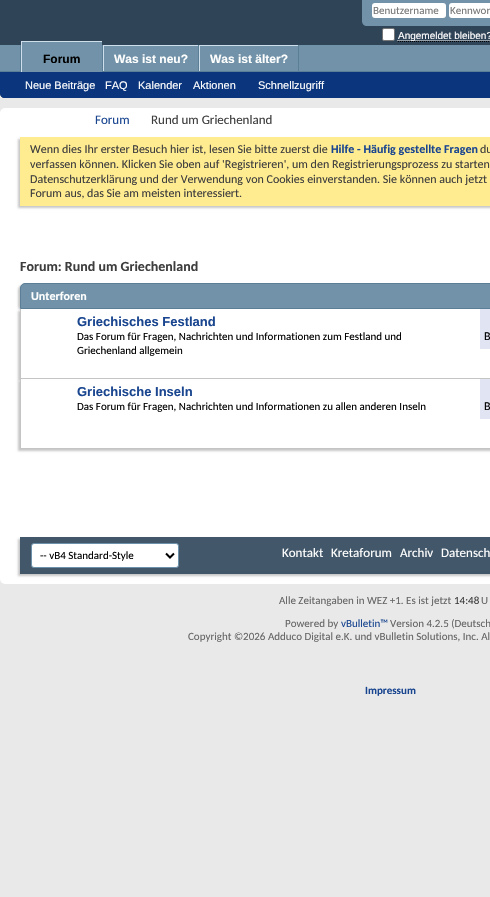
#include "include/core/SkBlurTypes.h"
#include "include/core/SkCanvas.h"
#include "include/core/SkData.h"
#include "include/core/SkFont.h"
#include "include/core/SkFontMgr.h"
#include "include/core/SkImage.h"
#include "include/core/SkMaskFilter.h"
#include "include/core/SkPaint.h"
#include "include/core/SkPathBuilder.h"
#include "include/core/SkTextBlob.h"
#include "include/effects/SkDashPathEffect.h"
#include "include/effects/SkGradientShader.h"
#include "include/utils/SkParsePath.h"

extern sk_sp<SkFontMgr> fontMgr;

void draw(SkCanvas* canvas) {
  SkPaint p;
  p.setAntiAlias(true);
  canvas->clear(SkColorSetRGB(233, 233, 233));
  p.setColor(SkColorSetRGB(47, 68, 86));
  canvas->drawPath(SkPathBuilder().moveTo(0, 0).lineTo(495, 0).lineTo(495, 93).cubicTo(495, 96, 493, 98, 490, 98).lineTo(5, 98).cubicTo(2, 98, 0, 96, 0, 93).close().detach(), p);
  p.setColor(SkColorSetRGB(113, 146, 168));
  canvas->drawPath(SkPathBuilder().moveTo(362, 0).lineTo(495, 0).lineTo(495, 21).cubicTo(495, 24, 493, 26, 490, 26).lineTo(367, 26).cubicTo(364, 26, 362, 24, 362, 21).close().detach(), p);
  p.setColor(SK_ColorWHITE);
  canvas->drawRoundRect(SkRect::MakeLTRB(372, 3, 446, 18), 3, 3, p);
  canvas->drawRoundRect(SkRect::MakeLTRB(449, 3, 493, 18), 3, 3, p);
  canvas->drawRoundRect(SkRect::MakeLTRB(382.5f, 28.5f, 394.5f, 40.5f), 1.5f, 1.5f, p);
  p.setStyle(SkPaint::kStroke_Style);
  p.setStrokeWidth(1);
  p.setColor(SkColorSetRGB(118, 118, 118));
  canvas->drawRoundRect(SkRect::MakeLTRB(382.5f, 28.5f, 394.5f, 40.5f), 1.5f, 1.5f, p);
  p.setColor(SK_ColorBLACK);
  p.setPathEffect(SkDashPathEffect::Make({{1, 1}}, 0));
  canvas->drawPath(SkPathBuilder().moveTo(398, 41.5f).lineTo(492, 41.5f).detach(), p);
  p.setPathEffect(nullptr);
  p.setColor(SK_ColorWHITE);
  p.setPathEffect(SkDashPathEffect::Make({{1, 1}}, 0));
  canvas->drawPath(SkPathBuilder().moveTo(397.5f, 40.5f).lineTo(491.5f, 40.5f).detach(), p);
  p.setPathEffect(nullptr);
  p.setStyle(SkPaint::kFill_Style);
  p.setColor(SkColorSetRGB(11, 54, 125));
  canvas->drawPath(SkPathBuilder().moveTo(0, 45).lineTo(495, 45).lineTo(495, 93).cubicTo(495, 96, 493, 98, 490, 98).lineTo(5, 98).cubicTo(2, 98, 0, 96, 0, 93).close().detach(), p);
  p.setColor(SkColorSetRGB(113, 146, 168));
  canvas->drawRect(SkRect::MakeLTRB(0, 45, 490, 71), p);
  p.setColor(SkColorSetRGB(90, 127, 151));
  canvas->drawRect(SkRect::MakeLTRB(102, 45, 103, 71), p);
  canvas->drawRect(SkRect::MakeLTRB(20, 45, 21, 71), p);
  canvas->drawRect(SkRect::MakeLTRB(198, 45, 199, 72), p);
  p.setColor(SkColorSetRGB(206, 223, 235));
  canvas->drawRect(SkRect::MakeLTRB(103, 45, 198, 46), p);
  canvas->drawRect(SkRect::MakeLTRB(103, 45, 104, 72), p);
  p.setColor(SkColorSetRGB(90, 127, 151));
  canvas->drawRect(SkRect::MakeLTRB(298, 45, 299, 72), p);
  p.setColor(SkColorSetRGB(206, 223, 235));
  canvas->drawRect(SkRect::MakeLTRB(199, 45, 298, 46), p);
  canvas->drawRect(SkRect::MakeLTRB(199, 45, 200, 72), p);
  p.setColor(SkColorSetRGB(90, 127, 151));
  canvas->drawRect(SkRect::MakeLTRB(0, 71, 490, 72), p);
  p.setColor(SkColorSetRGB(113, 146, 168));
  canvas->drawRect(SkRect::MakeLTRB(22, 42, 102, 72), p);
  p.setColor(SkColorSetRGB(206, 223, 235));
  canvas->drawRect(SkRect::MakeLTRB(21, 41, 102, 42), p);
  canvas->drawRect(SkRect::MakeLTRB(21, 41, 22, 72), p);
  p.setColor(SK_ColorWHITE);
  canvas->drawRoundRect(SkRect::MakeLTRB(0, 108, 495, 584), 5, 5, p);
  p.setColor(SkColorSetRGB(200, 200, 200));
  p.setMaskFilter(SkMaskFilter::MakeBlur(kNormal_SkBlurStyle, 1));
  canvas->drawRect(SkRect::MakeLTRB(18, 139, 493, 208), p);
  p.setMaskFilter(nullptr);
  p.setColor(SkColorSetRGB(255, 235, 144));
  canvas->drawRect(SkRect::MakeLTRB(20, 137, 490, 206), p);
  p.setColor(SkColorSetRGB(200, 200, 200));
  p.setMaskFilter(SkMaskFilter::MakeBlur(kNormal_SkBlurStyle, 1));
  canvas->drawRoundRect(SkRect::MakeLTRB(18, 285, 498, 311), 5, 5, p);
  p.setMaskFilter(nullptr);
  p.setColor(SkColorSetRGB(113, 146, 168));
  canvas->drawPath(SkPathBuilder().moveTo(25, 283.5f).lineTo(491, 283.5f).cubicTo(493.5f, 283.5f, 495.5f, 285.5f, 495.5f, 288).lineTo(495.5f, 308.5f).lineTo(20.5f, 308.5f).lineTo(20.5f, 288).cubicTo(20.5f, 285.5f, 22.5f, 283.5f, 25, 283.5f).close().detach(), p);
  p.setStyle(SkPaint::kStroke_Style);
  p.setColor(SkColorSetRGB(90, 127, 151));
  canvas->drawPath(SkPathBuilder().moveTo(25, 283.5f).lineTo(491, 283.5f).cubicTo(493.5f, 283.5f, 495.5f, 285.5f, 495.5f, 288).lineTo(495.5f, 308.5f).lineTo(20.5f, 308.5f).lineTo(20.5f, 288).cubicTo(20.5f, 285.5f, 22.5f, 283.5f, 25, 283.5f).close().detach(), p);
  p.setStyle(SkPaint::kFill_Style);
  p.setColor(SkColorSetRGB(200, 200, 200));
  p.setMaskFilter(SkMaskFilter::MakeBlur(kNormal_SkBlurStyle, 1));
  canvas->drawRect(SkRect::MakeLTRB(18, 311, 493, 381), p);
  p.setMaskFilter(nullptr);
  p.setColor(SK_ColorWHITE);
  canvas->drawRect(SkRect::MakeLTRB(21, 309, 490, 378), p);
  p.setColor(SkColorSetRGB(196, 196, 196));
  canvas->drawRect(SkRect::MakeLTRB(20, 378, 490, 379), p);
  canvas->drawRect(SkRect::MakeLTRB(20, 309, 21, 379), p);
  p.setColor(SkColorSetRGB(225, 228, 242));
  canvas->drawRect(SkRect::MakeLTRB(480, 309, 490, 349), p);
  p.setColor(SkColorSetRGB(200, 200, 200));
  p.setMaskFilter(SkMaskFilter::MakeBlur(kNormal_SkBlurStyle, 1));
  canvas->drawRect(SkRect::MakeLTRB(18, 381, 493, 451), p);
  p.setMaskFilter(nullptr);
  p.setColor(SK_ColorWHITE);
  canvas->drawRect(SkRect::MakeLTRB(21, 379, 490, 448), p);
  p.setColor(SkColorSetRGB(196, 196, 196));
  canvas->drawRect(SkRect::MakeLTRB(20, 448, 490, 449), p);
  canvas->drawRect(SkRect::MakeLTRB(20, 379, 21, 449), p);
  p.setColor(SkColorSetRGB(225, 228, 242));
  canvas->drawRect(SkRect::MakeLTRB(480, 379, 490, 419), p);
  p.setColor(SkColorSetRGB(200, 200, 200));
  p.setMaskFilter(SkMaskFilter::MakeBlur(kNormal_SkBlurStyle, 1));
  canvas->drawRect(SkRect::MakeLTRB(18, 539, 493, 576), p);
  p.setMaskFilter(nullptr);
  p.setColor(SkColorSetRGB(66, 87, 105));
  canvas->drawRect(SkRect::MakeLTRB(20, 537, 490, 574), p);
  p.setColor(SK_ColorWHITE);
  canvas->drawRoundRect(SkRect::MakeLTRB(31.5f, 543.5f, 178.5f, 567.5f), 2.5f, 2.5f, p);
  p.setStyle(SkPaint::kStroke_Style);
  p.setColor(SkColorSetRGB(107, 145, 171));
  canvas->drawRoundRect(SkRect::MakeLTRB(31.5f, 543.5f, 178.5f, 567.5f), 2.5f, 2.5f, p);
  p.setStrokeWidth(2);
  p.setColor(SK_ColorBLACK);
  canvas->drawPath(SkPathBuilder().moveTo(166, 553.5f).lineTo(170, 557.5f).lineTo(174, 553.5f).detach(), p);
  SkFont font1(fontMgr->matchFamilyStyle("Carlito", SkFontStyle::Normal()), 11);
  font1.setSubpixel(true);
  p.setStyle(SkPaint::kFill_Style);
  p.setColor(SkColorSetRGB(119, 119, 119));
  canvas->drawString("Benutzername", 373, 14, font1, p);
  canvas->drawString("Kennwor", 450, 14, font1, p);
  SkFont font2(fontMgr->matchFamilyStyle("Liberation Sans", SkFontStyle::Normal()), 10);
  font2.setSubpixel(true);
  p.setColor(SK_ColorWHITE);
  canvas->drawString("Angemeldet bleiben?", 398, 39, font2, p);
  SkFont font3(fontMgr->matchFamilyStyle("Liberation Sans", SkFontStyle::Bold()), 12);
  font3.setSubpixel(true);
  p.setColor(SK_ColorBLACK);
  canvas->drawString("Forum", 43, 63, font3, p);
  p.setColor(SK_ColorWHITE);
  canvas->drawString("Was ist neu?", 114, 63, font3, p);
  canvas->drawString("Was ist älter?", 210, 63, font3, p);
  SkFont font4(fontMgr->matchFamilyStyle("Liberation Sans", SkFontStyle::Normal()), 11);
  font4.setSubpixel(true);
  canvas->drawString("Neue Beiträge", 25, 89, font4, p);
  canvas->drawString("FAQ", 105, 89, font4, p);
  canvas->drawString("Kalender", 138, 89, font4, p);
  canvas->drawString("Aktionen", 193, 89, font4, p);
  canvas->drawString("Schnellzugriff", 258, 89, font4, p);
  SkFont font5(fontMgr->matchFamilyStyle("Carlito", SkFontStyle::Normal()), 13);
  font5.setSubpixel(true);
  p.setColor(SkColorSetRGB(26, 70, 144));
  canvas->drawString("Forum", 95, 124, font5, p);
  p.setColor(SkColorSetRGB(62, 62, 62));
  canvas->drawString("Rund um Griechenland", 151, 124, font5, p);
  SkFont font6(fontMgr->matchFamilyStyle("Carlito", SkFontStyle::Normal()), 12);
  font6.setSubpixel(true);
  canvas->drawString("Wenn dies Ihr erster Besuch hier ist, lesen Sie bitte zuerst die", 30, 153, font6, p);
  SkFont font7(fontMgr->matchFamilyStyle("Carlito", SkFontStyle::Bold()), 12);
  font7.setSubpixel(true);
  p.setColor(SkColorSetRGB(26, 70, 144));
  canvas->drawString("Hilfe - Häufig gestellte Fragen", 331, 153, font7, p);
  p.setColor(SkColorSetRGB(62, 62, 62));
  canvas->drawString("du", 480, 153, font6, p);
  canvas->drawString("verfassen können. Klicken Sie oben auf 'Registrieren', um den Registrierungsprozess zu starten", 30, 168, font6, p);
  canvas->drawString("Datenschutzerklärung und der Verwendung von Cookies einverstanden. Sie können auch jetzt", 30, 183, font6, p);
  canvas->drawString("Forum aus, das Sie am meisten interessiert.", 30, 197, font6, p);
  SkFont font8(fontMgr->matchFamilyStyle("Carlito", SkFontStyle::Bold()), 14);
  font8.setSubpixel(true);
  canvas->drawString("Forum: Rund um Griechenland", 20, 271, font8, p);
  p.setColor(SK_ColorWHITE);
  canvas->drawString("Unterforen", 31, 300, font7, p);
  SkFont font9(fontMgr->matchFamilyStyle("Liberation Sans", SkFontStyle::Bold()), 13);
  font9.setSubpixel(true);
  p.setColor(SkColorSetRGB(26, 70, 144));
  canvas->drawString("Griechisches Festland", 77, 326, font9, p);
  p.setColor(SK_ColorBLACK);
  canvas->drawString("Das Forum für Fragen, Nachrichten und Informationen zum Festland und", 77, 340, font1, p);
  canvas->drawString("Griechenland allgemein", 77, 354, font1, p);
  canvas->drawString("B", 484, 340, font6, p);
  p.setColor(SkColorSetRGB(26, 70, 144));
  canvas->drawString("Griechische Inseln", 77, 396, font9, p);
  p.setColor(SK_ColorBLACK);
  canvas->drawString("Das Forum für Fragen, Nachrichten und Informationen zu allen anderen Inseln", 77, 410, font1, p);
  canvas->drawString("B", 484, 410, font6, p);
  canvas->drawString("-- vB4 Standard-Style", 40, 559, font1, p);
  p.setColor(SK_ColorWHITE);
  canvas->drawString("Kontakt", 282, 557, font5, p);
  canvas->drawString("Kretaforum", 331, 557, font5, p);
  canvas->drawString("Archiv", 400, 557, font5, p);
  canvas->drawString("Datensch", 441, 557, font5, p);
  p.setColor(SkColorSetRGB(102, 102, 102));
  canvas->drawString("Alle Zeitangaben in WEZ +1. Es ist jetzt", 279, 604, font1, p);
  p.setColor(SkColorSetRGB(62, 62, 62));
  canvas->drawString("14:48", 454, 604, font1, p);
  p.setColor(SkColorSetRGB(102, 102, 102));
  canvas->drawString("U", 481, 604, font1, p);
  canvas->drawString("Powered by", 285, 627, font1, p);
  p.setColor(SkColorSetRGB(26, 70, 144));
  canvas->drawString("vBulletin™", 341, 627, font1, p);
  p.setColor(SkColorSetRGB(102, 102, 102));
  canvas->drawString("Version 4.2.5 (Deutsch", 390, 627, font1, p);
  canvas->drawString("Copyright ©2026 Adduco Digital e.K. und vBulletin Solutions, Inc. Al", 188, 640, font1, p);
  SkFont font10(fontMgr->matchFamilyStyle("Carlito", SkFontStyle::Bold()), 11);
  font10.setSubpixel(true);
  p.setColor(SkColorSetRGB(26, 70, 144));
  canvas->drawString("Impressum", 365, 694, font10, p);
}
